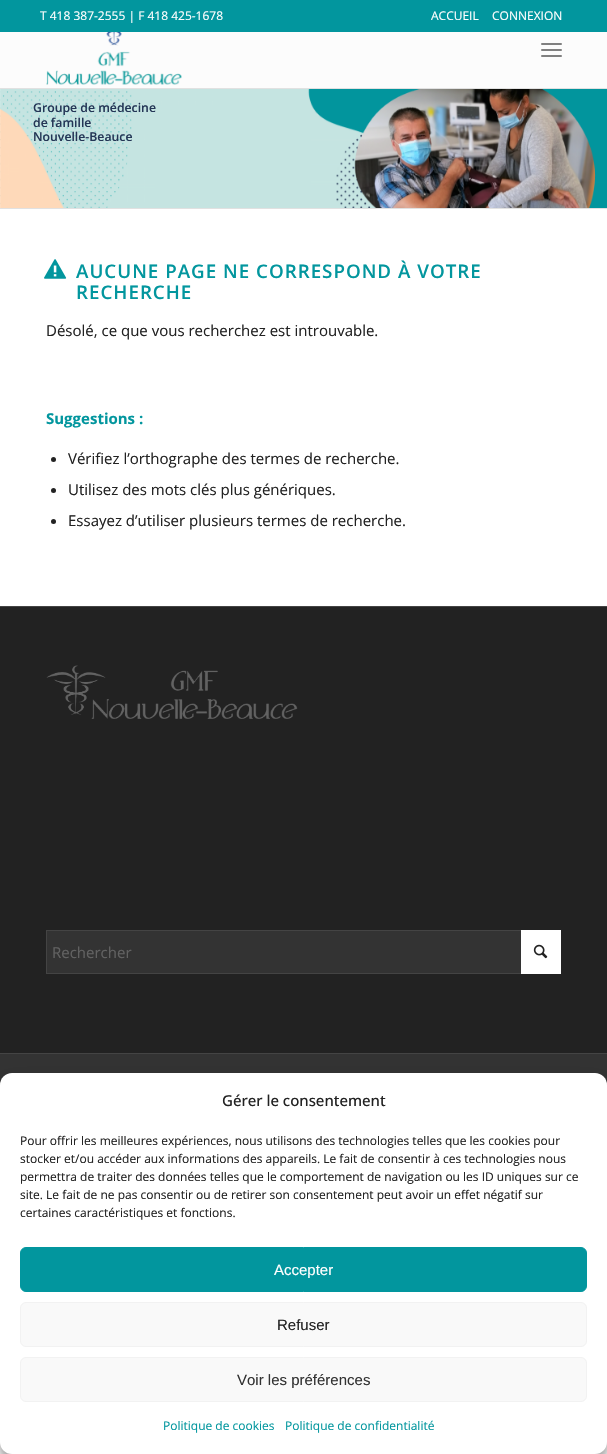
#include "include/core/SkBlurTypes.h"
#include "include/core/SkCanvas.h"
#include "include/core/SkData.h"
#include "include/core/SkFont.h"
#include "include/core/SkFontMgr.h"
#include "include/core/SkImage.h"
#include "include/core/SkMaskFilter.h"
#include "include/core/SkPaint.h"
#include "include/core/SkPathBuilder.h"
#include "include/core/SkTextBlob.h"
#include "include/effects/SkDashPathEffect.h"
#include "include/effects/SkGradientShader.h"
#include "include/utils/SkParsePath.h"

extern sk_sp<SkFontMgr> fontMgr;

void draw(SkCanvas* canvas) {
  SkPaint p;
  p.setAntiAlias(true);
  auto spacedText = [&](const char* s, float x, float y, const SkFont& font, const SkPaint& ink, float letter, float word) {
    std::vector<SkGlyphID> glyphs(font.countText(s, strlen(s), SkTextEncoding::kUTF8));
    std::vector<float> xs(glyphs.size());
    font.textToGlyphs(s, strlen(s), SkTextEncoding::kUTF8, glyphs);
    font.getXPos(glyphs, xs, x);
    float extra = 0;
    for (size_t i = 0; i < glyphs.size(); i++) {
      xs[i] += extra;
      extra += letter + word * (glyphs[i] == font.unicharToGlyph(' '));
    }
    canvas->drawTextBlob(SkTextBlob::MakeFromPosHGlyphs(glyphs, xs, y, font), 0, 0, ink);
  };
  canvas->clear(SkColorSetRGB(252, 252, 252));
  p.setColor(SkColorSetRGB(2, 150, 158));
  canvas->drawRect(SkRect::MakeLTRB(0, 0, 607, 32), p);
  p.setColor(SkColorSetRGB(225, 225, 225));
  canvas->drawRect(SkRect::MakeLTRB(0, 88, 607, 89), p);
  canvas->drawImageRect(SkImages::DeferredFromEncodedData(SkData::MakeFromFileName("images/1.png")), SkRect::MakeLTRB(46, 32, 182, 85), SkSamplingOptions());
  p.setColor(SkColorSetRGB(128, 128, 128));
  canvas->drawRoundRect(SkRect::MakeLTRB(541, 49, 562, 51), 1, 1, p);
  canvas->drawRoundRect(SkRect::MakeLTRB(541, 43, 562, 45), 1, 1, p);
  canvas->drawRoundRect(SkRect::MakeLTRB(541, 55, 562, 57), 1, 1, p);
  canvas->drawImageRect(SkImages::DeferredFromEncodedData(SkData::MakeFromFileName("images/2.png")), SkRect::MakeLTRB(0, 89, 607, 208), SkSamplingOptions());
  p.setColor(SK_ColorWHITE);
  canvas->drawRect(SkRect::MakeLTRB(0, 209, 607, 606), p);
  p.setColor(SkColorSetRGB(225, 225, 225));
  canvas->drawRect(SkRect::MakeLTRB(0, 208, 607, 209), p);
  canvas->drawImageRect(SkImages::DeferredFromEncodedData(SkData::MakeFromFileName("images/3.png")), SkRect::MakeLTRB(44, 259, 67, 279), SkSamplingOptions());
  p.setColor(SkColorSetRGB(34, 34, 34));
  canvas->drawCircle(53.5f, 459.5f, 2.5f, p);
  canvas->drawCircle(53.5f, 490.5f, 2.5f, p);
  canvas->drawCircle(53.5f, 521.5f, 2.5f, p);
  canvas->drawRect(SkRect::MakeLTRB(0, 607, 607, 1053), p);
  p.setColor(SkColorSetRGB(68, 68, 68));
  canvas->drawRect(SkRect::MakeLTRB(0, 606, 607, 607), p);
  canvas->drawImageRect(SkImages::DeferredFromEncodedData(SkData::MakeFromFileName("images/4.png")), SkRect::MakeLTRB(46, 665, 298, 719), SkSamplingOptions());
  p.setColor(SkColorSetRGB(51, 51, 51));
  canvas->drawRect(SkRect::MakeLTRB(47, 931, 521, 973), p);
  p.setStyle(SkPaint::kStroke_Style);
  p.setStrokeWidth(1);
  p.setColor(SkColorSetRGB(68, 68, 68));
  canvas->drawRect(SkRect::MakeLTRB(46.5f, 930.5f, 560.5f, 973.5f), p);
  p.setStyle(SkPaint::kFill_Style);
  p.setColor(SK_ColorWHITE);
  canvas->drawRect(SkRect::MakeLTRB(521, 930, 561, 974), p);
  canvas->drawImageRect(SkImages::DeferredFromEncodedData(SkData::MakeFromFileName("images/5.png")), SkRect::MakeLTRB(533, 944, 548, 959), SkSamplingOptions());
  p.setColor(SkColorSetRGB(51, 51, 51));
  canvas->drawRect(SkRect::MakeLTRB(0, 1054, 607, 1085), p);
  p.setColor(SkColorSetRGB(68, 68, 68));
  canvas->drawRect(SkRect::MakeLTRB(0, 1053, 607, 1054), p);
  p.setColor(SkColorSetARGB(59, 0, 0, 0));
  p.setMaskFilter(SkMaskFilter::MakeBlur(kNormal_SkBlurStyle, 3));
  canvas->drawRoundRect(SkRect::MakeLTRB(0, 1079, 607, 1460), 12, 12, p);
  p.setMaskFilter(nullptr);
  p.setColor(SkColorSetARGB(48, 0, 0, 0));
  p.setMaskFilter(SkMaskFilter::MakeBlur(kNormal_SkBlurStyle, 10));
  canvas->drawRoundRect(SkRect::MakeLTRB(0, 1083, 607, 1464), 12, 12, p);
  p.setMaskFilter(nullptr);
  p.setColor(SK_ColorWHITE);
  canvas->drawRoundRect(SkRect::MakeLTRB(0, 1073, 607, 1454), 12, 12, p);
  p.setColor(SkColorSetRGB(2, 150, 158));
  canvas->drawRoundRect(SkRect::MakeLTRB(20.5f, 1247.5f, 586.5f, 1291.5f), 5.5f, 5.5f, p);
  p.setStyle(SkPaint::kStroke_Style);
  canvas->drawRoundRect(SkRect::MakeLTRB(20.5f, 1247.5f, 586.5f, 1291.5f), 5.5f, 5.5f, p);
  p.setStyle(SkPaint::kFill_Style);
  p.setColor(SkColorSetRGB(249, 249, 249));
  canvas->drawRoundRect(SkRect::MakeLTRB(20.5f, 1302.5f, 586.5f, 1346.5f), 5.5f, 5.5f, p);
  p.setStyle(SkPaint::kStroke_Style);
  p.setColor(SkColorSetRGB(242, 242, 242));
  canvas->drawRoundRect(SkRect::MakeLTRB(20.5f, 1302.5f, 586.5f, 1346.5f), 5.5f, 5.5f, p);
  p.setStyle(SkPaint::kFill_Style);
  p.setColor(SkColorSetRGB(249, 249, 249));
  canvas->drawRoundRect(SkRect::MakeLTRB(20.5f, 1357.5f, 586.5f, 1401.5f), 5.5f, 5.5f, p);
  p.setStyle(SkPaint::kStroke_Style);
  p.setColor(SkColorSetRGB(242, 242, 242));
  canvas->drawRoundRect(SkRect::MakeLTRB(20.5f, 1357.5f, 586.5f, 1401.5f), 5.5f, 5.5f, p);
  SkFont font1(fontMgr->matchFamilyStyle("Open Sans", SkFontStyle::Normal()), 12);
  font1.setSubpixel(true);
  p.setStyle(SkPaint::kFill_Style);
  p.setColor(SK_ColorWHITE);
  canvas->drawString("T 418 387-2555 | F 418 425-1678", 40, 20, font1, p);
  canvas->drawString("ACCUEIL", 431, 20, font1, p);
  canvas->drawString("CONNEXION", 492, 20, font1, p);
  SkFont font2(fontMgr->matchFamilyStyle("Open Sans", SkFontStyle(600, SkFontStyle::kNormal_Width, SkFontStyle::kUpright_Slant)), 12.25f);
  font2.setSubpixel(true);
  p.setColor(SkColorSetRGB(36, 54, 86));
  canvas->drawString("Groupe de médecine", 33, 112, font2, p);
  canvas->drawString("de famille", 33, 127, font2, p);
  canvas->drawString("Nouvelle-Beauce", 33, 141, font2, p);
  SkFont font3(fontMgr->matchFamilyStyle("Open Sans", SkFontStyle(600, SkFontStyle::kNormal_Width, SkFontStyle::kUpright_Slant)), 18.75f);
  font3.setSubpixel(true);
  p.setColor(SkColorSetRGB(2, 150, 158));
  spacedText("AUCUNE PAGE NE CORRESPOND À VOTRE", 76, 278, font3, p, 1, 0);
  spacedText("RECHERCHE", 76, 299, font3, p, 1, 0);
  SkFont font4(fontMgr->matchFamilyStyle("Open Sans", SkFontStyle::Normal()), 15);
  font4.setSubpixel(true);
  p.setColor(SkColorSetRGB(34, 34, 34));
  canvas->drawString("Désolé, ce que vous recherchez est introuvable.", 46, 336, font4, p);
  SkFont font5(fontMgr->matchFamilyStyle("Open Sans", SkFontStyle::Bold()), 15);
  font5.setSubpixel(true);
  p.setColor(SkColorSetRGB(2, 150, 158));
  canvas->drawString("Suggestions :", 46, 424, font5, p);
  p.setColor(SkColorSetRGB(34, 34, 34));
  canvas->drawString("Vérifiez l’orthographe des termes de recherche.", 68, 464, font4, p);
  canvas->drawString("Utilisez des mots clés plus génériques.", 68, 495, font4, p);
  canvas->drawString("Essayez d’utiliser plusieurs termes de recherche.", 68, 526, font4, p);
  p.setColor(SkColorSetRGB(98, 98, 98));
  canvas->drawString("Rechercher", 52, 958, font4, p);
  SkFont font6(fontMgr->matchFamilyStyle("Open Sans", SkFontStyle(500, SkFontStyle::kNormal_Width, SkFontStyle::kUpright_Slant)), 15);
  font6.setSubpixel(true);
  p.setColor(SkColorSetRGB(34, 34, 34));
  canvas->drawString("Gérer le consentement", 222, 1106, font6, p);
  canvas->drawString("Pour offrir les meilleures expériences, nous utilisons des technologies telles que les cookies pour", 20, 1145, font1, p);
  canvas->drawString("stocker et/ou accéder aux informations des appareils. Le fait de consentir à ces technologies nous", 20, 1163, font1, p);
  canvas->drawString("permettra de traiter des données telles que le comportement de navigation ou les ID uniques sur ce", 20, 1181, font1, p);
  canvas->drawString("site. Le fait de ne pas consentir ou de retirer son consentement peut avoir un effet négatif sur", 20, 1199, font1, p);
  canvas->drawString("certaines caractéristiques et fonctions.", 20, 1217, font1, p);
  SkFont font7(fontMgr->matchFamilyStyle("Liberation Sans", SkFontStyle::Normal()), 15);
  font7.setSubpixel(true);
  p.setColor(SK_ColorWHITE);
  canvas->drawString("Accepter", 274, 1275, font7, p);
  p.setColor(SkColorSetRGB(34, 34, 34));
  canvas->drawString("Refuser", 277, 1330, font7, p);
  p.setColor(SkColorSetRGB(51, 51, 51));
  canvas->drawString("Voir les préférences", 237, 1385, font7, p);
  p.setColor(SkColorSetRGB(2, 150, 158));
  canvas->drawString("Politique de cookies", 163, 1430, font1, p);
  canvas->drawString("Politique de confidentialité", 285, 1430, font1, p);
}
